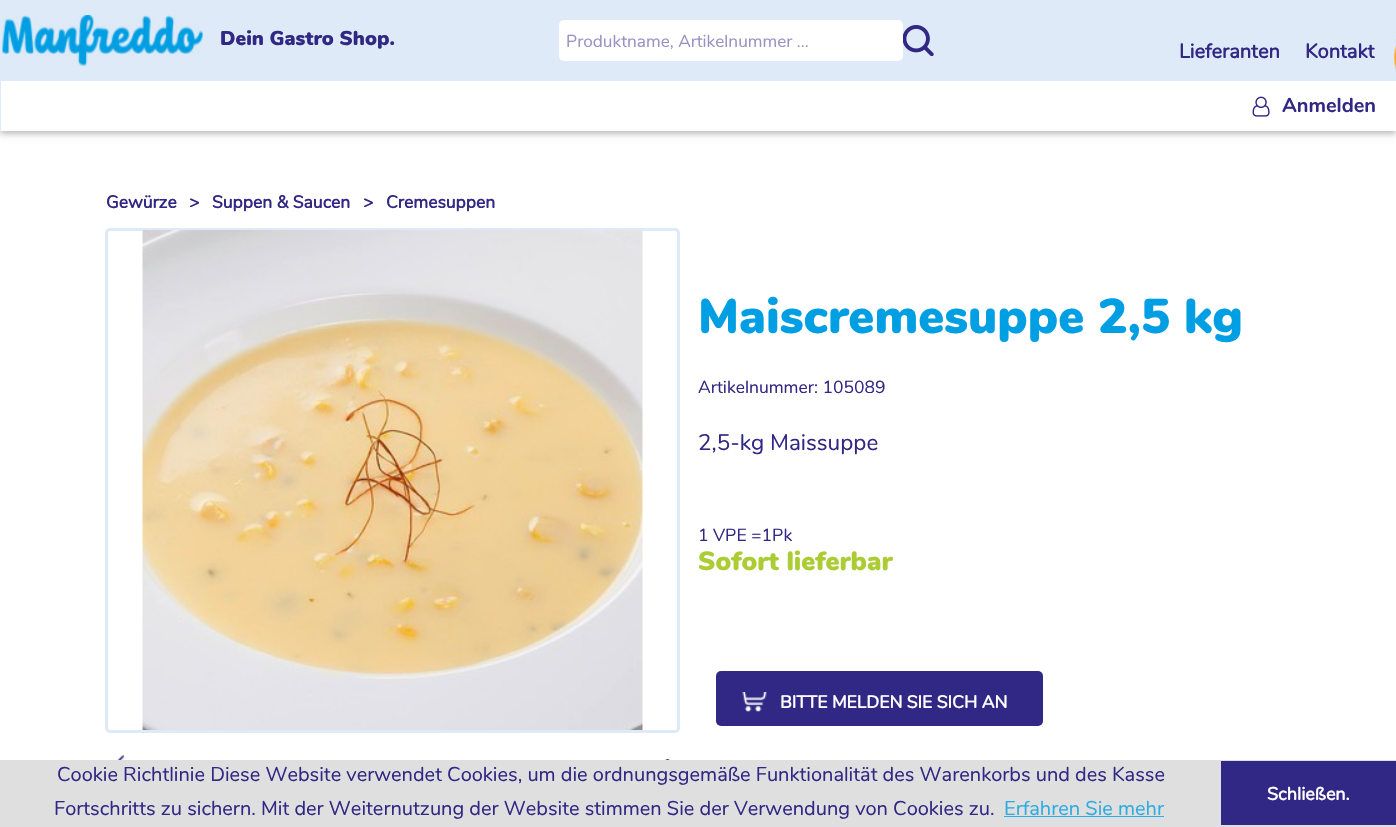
#include "include/core/SkBlurTypes.h"
#include "include/core/SkCanvas.h"
#include "include/core/SkData.h"
#include "include/core/SkFont.h"
#include "include/core/SkFontMgr.h"
#include "include/core/SkImage.h"
#include "include/core/SkMaskFilter.h"
#include "include/core/SkPaint.h"
#include "include/core/SkPathBuilder.h"
#include "include/core/SkTextBlob.h"
#include "include/effects/SkDashPathEffect.h"
#include "include/effects/SkGradientShader.h"
#include "include/utils/SkParsePath.h"

extern sk_sp<SkFontMgr> fontMgr;

void draw(SkCanvas* canvas) {
  SkPaint p;
  p.setAntiAlias(true);
  canvas->clear(SK_ColorWHITE);
  p.setColor(SkColorSetARGB(66, 0, 0, 0));
  p.setMaskFilter(SkMaskFilter::MakeBlur(kNormal_SkBlurStyle, 3));
  canvas->drawRect(SkRect::MakeLTRB(0, 84, 1396, 134), p);
  p.setMaskFilter(nullptr);
  p.setColor(SkColorSetRGB(223, 234, 248));
  canvas->drawRect(SkRect::MakeLTRB(0, 0, 1396, 81), p);
  canvas->drawImageRect(SkImages::DeferredFromEncodedData(SkData::MakeFromFileName("images/1.png")), SkRect::MakeLTRB(2, 15, 203, 66), SkSamplingOptions());
  p.setColor(SK_ColorWHITE);
  canvas->drawRoundRect(SkRect::MakeLTRB(559, 20, 903, 61), 5, 5, p);
  canvas->drawImageRect(SkImages::DeferredFromEncodedData(SkData::MakeFromFileName("images/2.png")), SkRect::MakeLTRB(903, 25, 934, 56), SkSamplingOptions());
  canvas->drawImageRect(SkImages::DeferredFromEncodedData(SkData::MakeFromFileName("images/3.png")), SkRect::MakeLTRB(1394, 30, 1396, 79), SkSamplingOptions());
  canvas->drawRect(SkRect::MakeLTRB(1, 81, 1396, 131), p);
  p.setColor(SkColorSetRGB(223, 234, 248));
  canvas->drawRect(SkRect::MakeLTRB(0, 81, 1, 131), p);
  canvas->drawImageRect(SkImages::DeferredFromEncodedData(SkData::MakeFromFileName("images/4.png")), SkRect::MakeLTRB(1252, 96, 1270, 117), SkSamplingOptions());
  p.setStyle(SkPaint::kStroke_Style);
  p.setStrokeWidth(3);
  canvas->drawRoundRect(SkRect::MakeLTRB(106.5f, 229.5f, 678.5f, 731.5f), 3.5f, 3.5f, p);
  canvas->drawImageRect(SkImages::DeferredFromEncodedData(SkData::MakeFromFileName("images/5.png")), SkRect::MakeLTRB(142, 230, 643, 730), SkSamplingOptions());
  canvas->drawImageRect(SkImages::DeferredFromEncodedData(SkData::MakeFromFileName("images/6.png")), SkRect::MakeLTRB(117, 755, 125, 760), SkSamplingOptions());
  canvas->drawImageRect(SkImages::DeferredFromEncodedData(SkData::MakeFromFileName("images/7.png")), SkRect::MakeLTRB(665, 759, 671, 760), SkSamplingOptions());
  p.setStyle(SkPaint::kFill_Style);
  p.setColor(SkColorSetRGB(49, 39, 132));
  canvas->drawRoundRect(SkRect::MakeLTRB(716, 671, 1043, 726), 5, 5, p);
  canvas->drawImageRect(SkImages::DeferredFromEncodedData(SkData::MakeFromFileName("images/8.png")), SkRect::MakeLTRB(742, 692, 767, 712), SkSamplingOptions());
  p.setColor(SkColorSetRGB(223, 223, 223));
  canvas->drawRect(SkRect::MakeLTRB(0, 760, 1396, 827), p);
  p.setColor(SkColorSetRGB(45, 172, 226));
  canvas->drawRect(SkRect::MakeLTRB(1004, 816, 1164, 817), p);
  p.setColor(SkColorSetRGB(49, 39, 132));
  canvas->drawRect(SkRect::MakeLTRB(1221, 761, 1396, 825), p);
  SkFont font1(fontMgr->matchFamilyStyle("Nunito", SkFontStyle(900, SkFontStyle::kNormal_Width, SkFontStyle::kUpright_Slant)), 20);
  font1.setSubpixel(true);
  canvas->drawString("Dein Gastro Shop.", 220, 45, font1, p);
  SkFont font2(fontMgr->matchFamilyStyle("Nunito", SkFontStyle::Normal()), 17.25f);
  font2.setSubpixel(true);
  p.setColor(SkColorSetRGB(152, 147, 194));
  canvas->drawString("Produktname, Artikelnummer ...", 566, 47, font2, p);
  SkFont font3(fontMgr->matchFamilyStyle("Nunito", SkFontStyle::Bold()), 20);
  font3.setSubpixel(true);
  p.setColor(SkColorSetRGB(49, 39, 132));
  canvas->drawString("Lieferanten", 1179, 58, font3, p);
  canvas->drawString("Kontakt", 1305, 58, font3, p);
  SkFont font4(fontMgr->matchFamilyStyle("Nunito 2", SkFontStyle::Bold()), 20);
  font4.setSubpixel(true);
  canvas->drawString("Anmelden", 1282, 112, font4, p);
  SkFont font5(fontMgr->matchFamilyStyle("Nunito", SkFontStyle::Bold()), 17.5f);
  font5.setSubpixel(true);
  canvas->drawString("Gewürze", 106, 208, font5, p);
  canvas->drawString(">", 189, 208, font5, p);
  canvas->drawString("Suppen & Saucen", 212, 208, font5, p);
  canvas->drawString(">", 363, 208, font5, p);
  canvas->drawString("Cremesuppen", 386, 208, font5, p);
  SkFont font6(fontMgr->matchFamilyStyle("Nunito", SkFontStyle(900, SkFontStyle::kNormal_Width, SkFontStyle::kUpright_Slant)), 48.75f);
  font6.setSubpixel(true);
  p.setColor(SkColorSetRGB(0, 159, 227));
  canvas->drawString("Maiscremesuppe 2,5 kg", 698, 333, font6, p);
  SkFont font7(fontMgr->matchFamilyStyle("Nunito", SkFontStyle::Normal()), 17.5f);
  font7.setSubpixel(true);
  p.setColor(SkColorSetRGB(49, 39, 132));
  canvas->drawString("Artikelnummer: 105089", 698, 393, font7, p);
  SkFont font8(fontMgr->matchFamilyStyle("Nunito", SkFontStyle::Normal()), 22.5f);
  font8.setSubpixel(true);
  canvas->drawString("2,5-kg Maissuppe", 698, 450, font8, p);
  canvas->drawString("1 VPE =1Pk", 698, 541, font7, p);
  SkFont font9(fontMgr->matchFamilyStyle("Nunito", SkFontStyle(900, SkFontStyle::kNormal_Width, SkFontStyle::kUpright_Slant)), 26.25f);
  font9.setSubpixel(true);
  p.setColor(SkColorSetRGB(172, 204, 52));
  canvas->drawString("Sofort lieferbar", 698, 570, font9, p);
  p.setColor(SK_ColorWHITE);
  canvas->drawString("BITTE MELDEN SIE SICH AN", 780, 708, font5, p);
  SkFont font10(fontMgr->matchFamilyStyle("Nunito", SkFontStyle::Normal()), 20);
  font10.setSubpixel(true);
  p.setColor(SkColorSetRGB(49, 39, 132));
  canvas->drawString("Cookie Richtlinie Diese Website verwendet Cookies, um die ordnungsgemäße Funktionalität des Warenkorbs und des Kasse", 57, 781, font10, p);
  canvas->drawString("Fortschritts zu sichern. Mit der Weiternutzung der Website stimmen Sie der Verwendung von Cookies zu.", 54, 815, font10, p);
  p.setColor(SkColorSetRGB(45, 172, 226));
  canvas->drawString("Erfahren Sie mehr", 1004, 815, font10, p);
  SkFont font11(fontMgr->matchFamilyStyle("Nunito", SkFontStyle::Bold()), 18);
  font11.setSubpixel(true);
  p.setColor(SK_ColorWHITE);
  canvas->drawString("Schließen.", 1267, 800, font11, p);
}
